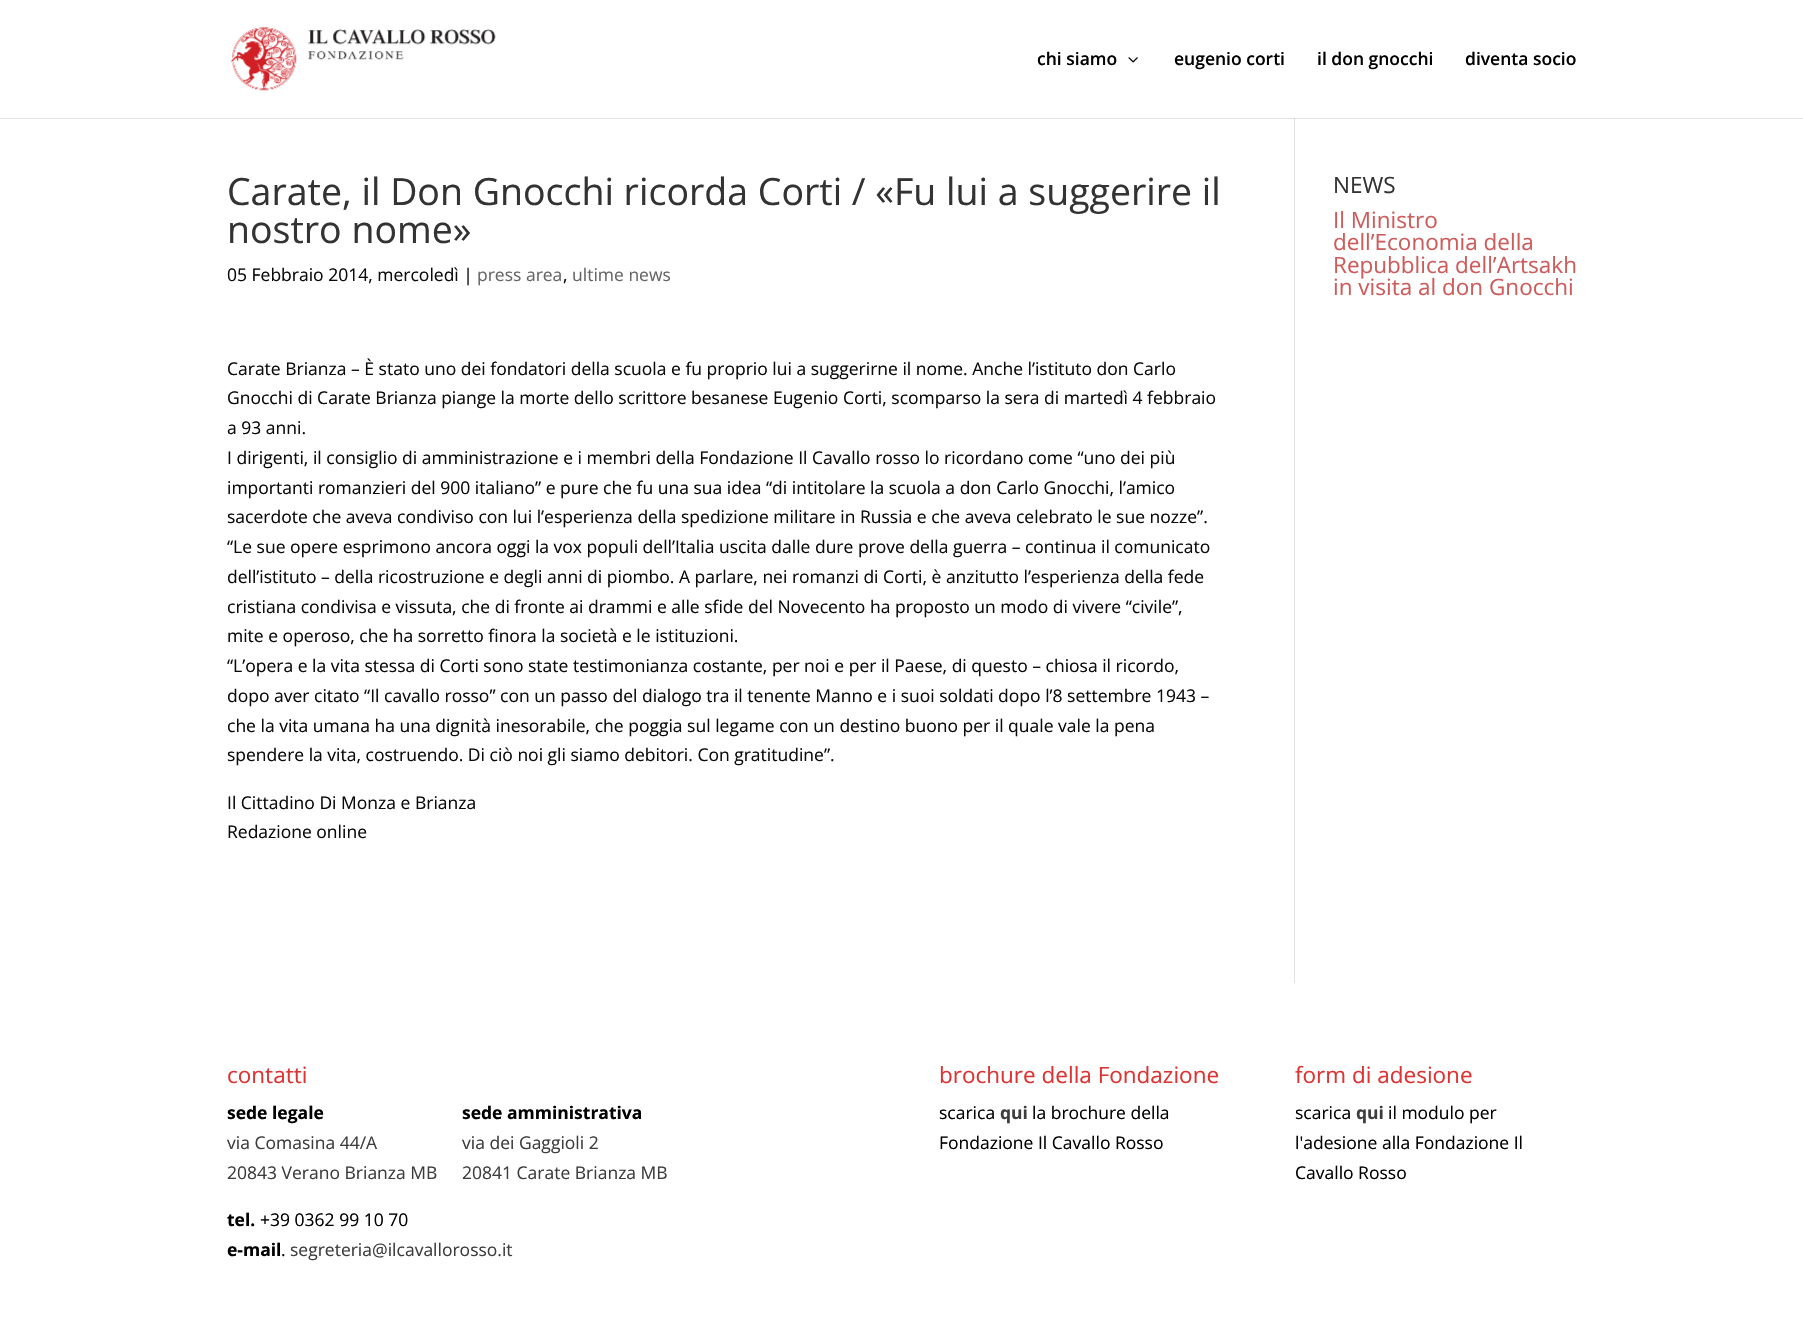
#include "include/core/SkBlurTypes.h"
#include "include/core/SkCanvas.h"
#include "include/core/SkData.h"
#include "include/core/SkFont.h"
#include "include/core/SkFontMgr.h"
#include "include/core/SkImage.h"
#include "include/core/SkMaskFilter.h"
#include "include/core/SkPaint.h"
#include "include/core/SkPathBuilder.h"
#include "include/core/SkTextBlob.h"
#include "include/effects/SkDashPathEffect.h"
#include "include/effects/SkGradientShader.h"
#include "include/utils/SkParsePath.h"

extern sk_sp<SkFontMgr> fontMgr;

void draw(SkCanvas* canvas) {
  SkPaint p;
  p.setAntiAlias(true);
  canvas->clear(SK_ColorWHITE);
  p.setColor(SkColorSetRGB(226, 226, 226));
  canvas->drawRect(SkRect::MakeLTRB(1294, 118, 1295, 983), p);
  p.setColor(SkColorSetARGB(26, 0, 0, 0));
  canvas->drawPath(SkPathBuilder().moveTo(0, 118).lineTo(0, 119).lineTo(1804, 119).lineTo(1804, 1).lineTo(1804, 118).close().detach(), p);
  canvas->drawImageRect(SkImages::DeferredFromEncodedData(SkData::MakeFromFileName("images/1.png")), SkRect::MakeLTRB(231, 27, 496, 91), SkSamplingOptions());
  canvas->drawImageRect(SkImages::DeferredFromEncodedData(SkData::MakeFromFileName("images/2.png")), SkRect::MakeLTRB(1128, 57, 1138, 63), SkSamplingOptions());
  SkFont font1(fontMgr->matchFamilyStyle("Open Sans", SkFontStyle(600, SkFontStyle::kNormal_Width, SkFontStyle::kUpright_Slant)), 17.5f);
  font1.setSubpixel(true);
  p.setColor(SK_ColorBLACK);
  canvas->drawString("chi siamo", 1037, 65, font1, p);
  canvas->drawString("eugenio corti", 1174, 65, font1, p);
  canvas->drawString("il don gnocchi", 1317, 65, font1, p);
  canvas->drawString("diventa socio", 1465, 65, font1, p);
  SkFont font2(fontMgr->matchFamilyStyle("Open Sans", SkFontStyle::Normal()), 37.5f);
  font2.setSubpixel(true);
  p.setColor(SkColorSetRGB(51, 51, 51));
  canvas->drawString("Carate, il Don Gnocchi ricorda Corti / «Fu lui a suggerire il", 227, 205, font2, p);
  canvas->drawString("nostro nome»", 227, 243, font2, p);
  SkFont font3(fontMgr->matchFamilyStyle("Open Sans", SkFontStyle::Normal()), 17.5f);
  font3.setSubpixel(true);
  p.setColor(SkColorSetRGB(10, 10, 10));
  canvas->drawString("05 Febbraio 2014, mercoledì |", 227, 281, font3, p);
  p.setColor(SkColorSetRGB(102, 102, 102));
  canvas->drawString("press area", 477, 281, font3, p);
  p.setColor(SkColorSetRGB(10, 10, 10));
  canvas->drawString(",", 563, 281, font3, p);
  p.setColor(SkColorSetRGB(102, 102, 102));
  canvas->drawString("ultime news", 572, 281, font3, p);
  p.setColor(SkColorSetRGB(10, 10, 10));
  canvas->drawString("Carate Brianza – È stato uno dei fondatori della scuola e fu proprio lui a suggerirne il nome. Anche l’istituto don Carlo", 227, 375, font3, p);
  canvas->drawString("Gnocchi di Carate Brianza piange la morte dello scrittore besanese Eugenio Corti, scomparso la sera di martedì 4 febbraio", 227, 404, font3, p);
  canvas->drawString("a 93 anni.", 227, 434, font3, p);
  canvas->drawString("I dirigenti, il consiglio di amministrazione e i membri della Fondazione Il Cavallo rosso lo ricordano come “uno dei più", 227, 464, font3, p);
  canvas->drawString("importanti romanzieri del 900 italiano” e pure che fu una sua idea “di intitolare la scuola a don Carlo Gnocchi, l’amico", 227, 494, font3, p);
  canvas->drawString("sacerdote che aveva condiviso con lui l’esperienza della spedizione militare in Russia e che aveva celebrato le sue nozze”.", 227, 523, font3, p);
  canvas->drawString("“Le sue opere esprimono ancora oggi la vox populi dell’Italia uscita dalle dure prove della guerra – continua il comunicato", 227, 553, font3, p);
  canvas->drawString("dell’istituto – della ricostruzione e degli anni di piombo. A parlare, nei romanzi di Corti, è anzitutto l’esperienza della fede", 227, 583, font3, p);
  canvas->drawString("cristiana condivisa e vissuta, che di fronte ai drammi e alle sfide del Novecento ha proposto un modo di vivere “civile”,", 227, 613, font3, p);
  canvas->drawString("mite e operoso, che ha sorretto finora la società e le istituzioni.", 227, 642, font3, p);
  canvas->drawString("“L’opera e la vita stessa di Corti sono state testimonianza costante, per noi e per il Paese, di questo – chiosa il ricordo,", 227, 672, font3, p);
  canvas->drawString("dopo aver citato “Il cavallo rosso” con un passo del dialogo tra il tenente Manno e i suoi soldati dopo l’8 settembre 1943 –", 227, 702, font3, p);
  canvas->drawString("che la vita umana ha una dignità inesorabile, che poggia sul legame con un destino buono per il quale vale la pena", 227, 732, font3, p);
  canvas->drawString("spendere la vita, costruendo. Di ciò noi gli siamo debitori. Con gratitudine”.", 227, 761, font3, p);
  canvas->drawString("Il Cittadino Di Monza e Brianza", 227, 809, font3, p);
  canvas->drawString("Redazione online", 227, 838, font3, p);
  SkFont font4(fontMgr->matchFamilyStyle("Open Sans", SkFontStyle::Normal()), 22.5f);
  font4.setSubpixel(true);
  p.setColor(SkColorSetRGB(51, 51, 51));
  canvas->drawString("NEWS", 1333, 193, font4, p);
  p.setColor(SkColorSetRGB(205, 92, 92));
  canvas->drawString("Il Ministro", 1333, 228, font4, p);
  canvas->drawString("dell’Economia della", 1333, 250, font4, p);
  canvas->drawString("Repubblica dell’Artsakh", 1333, 273, font4, p);
  canvas->drawString("in visita al don Gnocchi", 1333, 295, font4, p);
  p.setColor(SkColorSetRGB(221, 51, 51));
  canvas->drawString("contatti", 227, 1083, font4, p);
  SkFont font5(fontMgr->matchFamilyStyle("Open Sans", SkFontStyle::Bold()), 17.5f);
  font5.setSubpixel(true);
  p.setColor(SK_ColorBLACK);
  canvas->drawString("sede legale", 227, 1119, font5, p);
  p.setColor(SkColorSetRGB(61, 61, 61));
  canvas->drawString("via Comasina 44/A", 227, 1149, font3, p);
  canvas->drawString("20843 Verano Brianza MB", 227, 1179, font3, p);
  p.setColor(SK_ColorBLACK);
  canvas->drawString("sede amministrativa", 462, 1119, font5, p);
  p.setColor(SkColorSetRGB(61, 61, 61));
  canvas->drawString("via dei Gaggioli 2", 462, 1149, font3, p);
  canvas->drawString("20841 Carate Brianza MB", 462, 1179, font3, p);
  p.setColor(SK_ColorBLACK);
  canvas->drawString("tel.", 227, 1226, font5, p);
  canvas->drawString("+39 0362 99 10 70", 260, 1226, font3, p);
  canvas->drawString("e-mail", 227, 1256, font5, p);
  canvas->drawString(".", 281, 1256, font3, p);
  p.setColor(SkColorSetRGB(61, 61, 61));
  canvas->drawString("segreteria@ilcavallorosso.it", 290, 1256, font3, p);
  p.setColor(SkColorSetRGB(221, 51, 51));
  canvas->drawString("brochure della Fondazione", 939, 1083, font4, p);
  p.setColor(SK_ColorBLACK);
  canvas->drawString("scarica", 939, 1119, font3, p);
  p.setColor(SkColorSetRGB(61, 61, 61));
  canvas->drawString("qui", 1000, 1119, font5, p);
  p.setColor(SK_ColorBLACK);
  canvas->drawString("la brochure della", 1032, 1119, font3, p);
  canvas->drawString("Fondazione Il Cavallo Rosso", 939, 1149, font3, p);
  p.setColor(SkColorSetRGB(221, 51, 51));
  canvas->drawString("form di adesione", 1295, 1083, font4, p);
  p.setColor(SK_ColorBLACK);
  canvas->drawString("scarica", 1295, 1119, font3, p);
  p.setColor(SkColorSetRGB(61, 61, 61));
  canvas->drawString("qui", 1356, 1119, font5, p);
  p.setColor(SK_ColorBLACK);
  canvas->drawString("il modulo per", 1388, 1119, font3, p);
  canvas->drawString("l'adesione alla Fondazione Il", 1295, 1149, font3, p);
  canvas->drawString("Cavallo Rosso", 1295, 1179, font3, p);
}
